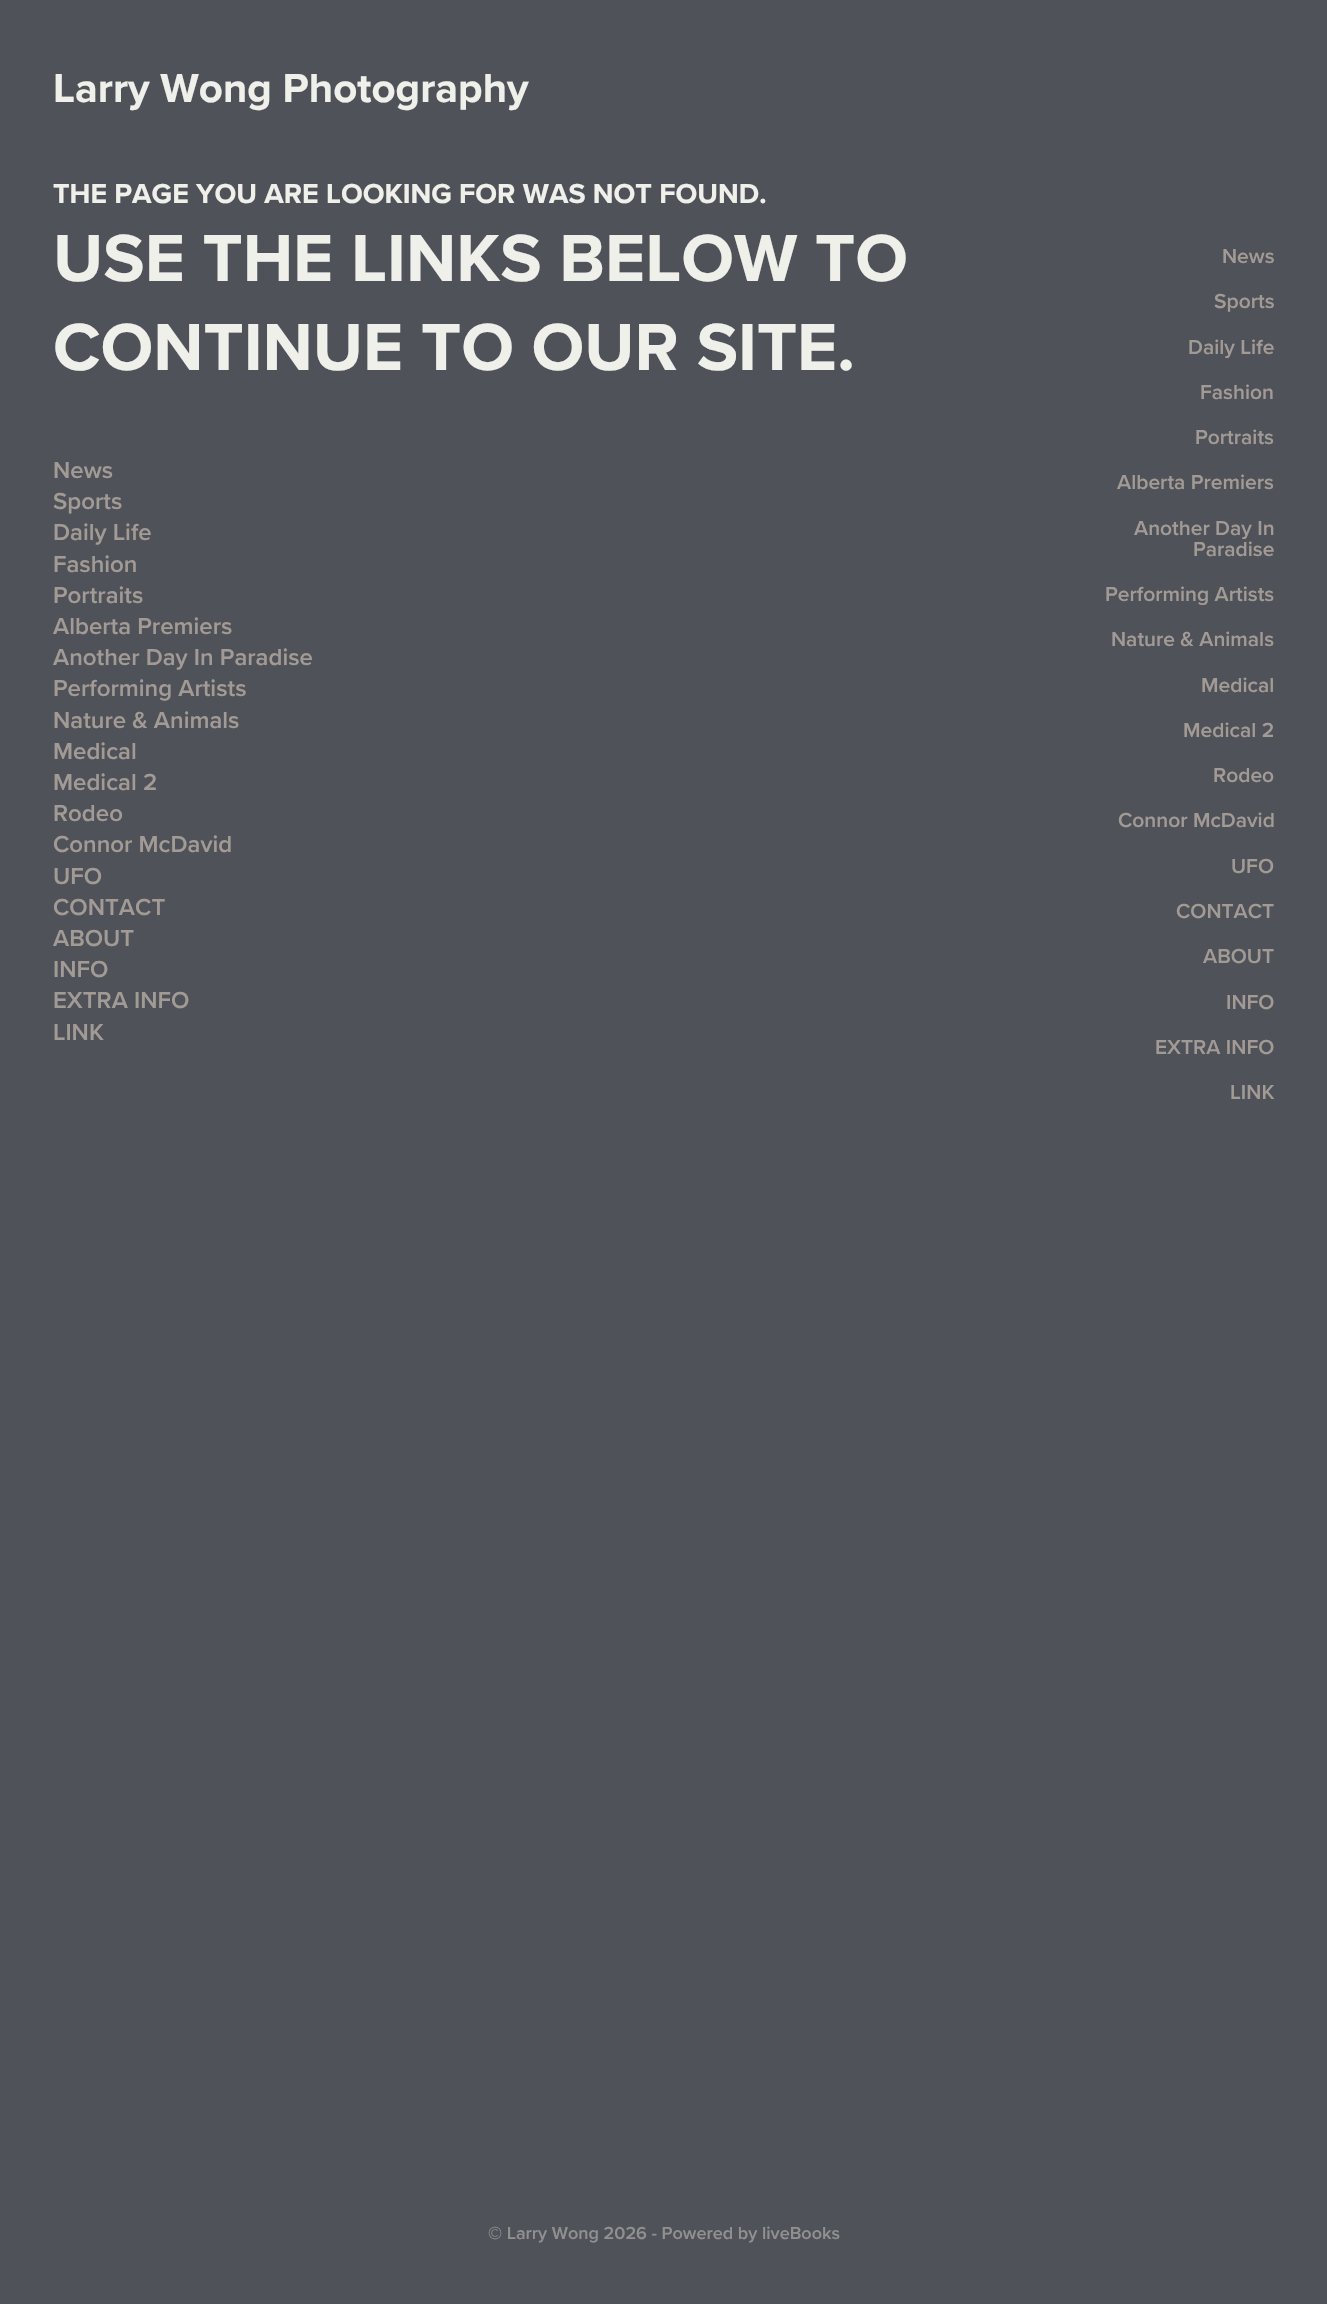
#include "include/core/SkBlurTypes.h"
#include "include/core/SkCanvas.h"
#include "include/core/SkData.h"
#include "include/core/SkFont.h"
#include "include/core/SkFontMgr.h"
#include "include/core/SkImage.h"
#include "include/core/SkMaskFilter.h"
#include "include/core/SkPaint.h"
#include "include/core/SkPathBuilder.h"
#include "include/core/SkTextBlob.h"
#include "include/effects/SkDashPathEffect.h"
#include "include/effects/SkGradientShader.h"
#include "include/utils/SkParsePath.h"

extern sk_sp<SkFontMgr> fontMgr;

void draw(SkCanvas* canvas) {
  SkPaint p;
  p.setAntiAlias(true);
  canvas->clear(SkColorSetRGB(79, 82, 88));
  SkFont font1(fontMgr->matchFamilyStyle("Proxima Nova", SkFontStyle::Bold()), 42);
  font1.setSubpixel(true);
  p.setColor(SkColorSetRGB(240, 240, 235));
  canvas->drawString("Larry Wong Photography", 53, 102, font1, p);
  SkFont font2(fontMgr->matchFamilyStyle("Proxima Nova", SkFontStyle::Bold()), 28.5f);
  font2.setSubpixel(true);
  canvas->drawString("THE PAGE YOU ARE LOOKING FOR WAS NOT FOUND.", 53, 203, font2, p);
  SkFont font3(fontMgr->matchFamilyStyle("Proxima Nova", SkFontStyle::Bold()), 69);
  font3.setSubpixel(true);
  canvas->drawString("USE THE LINKS BELOW TO", 53, 281, font3, p);
  canvas->drawString("CONTINUE TO OUR SITE.", 53, 370, font3, p);
  SkFont font4(fontMgr->matchFamilyStyle("Proxima Nova", SkFontStyle(600, SkFontStyle::kNormal_Width, SkFontStyle::kUpright_Slant)), 24);
  font4.setSubpixel(true);
  p.setColor(SkColorSetRGB(162, 154, 149));
  canvas->drawString("News", 53, 478, font4, p);
  canvas->drawString("Sports", 53, 509, font4, p);
  canvas->drawString("Daily Life", 53, 540, font4, p);
  canvas->drawString("Fashion", 53, 572, font4, p);
  canvas->drawString("Portraits", 53, 603, font4, p);
  canvas->drawString("Alberta Premiers", 53, 634, font4, p);
  canvas->drawString("Another Day In Paradise", 53, 665, font4, p);
  canvas->drawString("Performing Artists", 53, 696, font4, p);
  canvas->drawString("Nature & Animals", 53, 728, font4, p);
  canvas->drawString("Medical", 53, 759, font4, p);
  canvas->drawString("Medical 2", 53, 790, font4, p);
  canvas->drawString("Rodeo", 53, 821, font4, p);
  canvas->drawString("Connor McDavid", 53, 852, font4, p);
  canvas->drawString("UFO", 53, 884, font4, p);
  canvas->drawString("CONTACT", 53, 915, font4, p);
  canvas->drawString("ABOUT", 53, 946, font4, p);
  canvas->drawString("INFO", 53, 977, font4, p);
  canvas->drawString("EXTRA INFO", 53, 1008, font4, p);
  canvas->drawString("LINK", 53, 1040, font4, p);
  SkFont font5(fontMgr->matchFamilyStyle("Proxima Nova", SkFontStyle(600, SkFontStyle::kNormal_Width, SkFontStyle::kUpright_Slant)), 21);
  font5.setSubpixel(true);
  canvas->drawString("News", 1222, 263, font5, p);
  canvas->drawString("Sports", 1214, 308, font5, p);
  canvas->drawString("Daily Life", 1188, 354, font5, p);
  canvas->drawString("Fashion", 1200, 399, font5, p);
  canvas->drawString("Portraits", 1195, 444, font5, p);
  canvas->drawString("Alberta Premiers", 1117, 489, font5, p);
  canvas->drawString("Another Day In", 1134, 535, font5, p);
  canvas->drawString("Paradise", 1193, 556, font5, p);
  canvas->drawString("Performing Artists", 1105, 601, font5, p);
  canvas->drawString("Nature & Animals", 1111, 646, font5, p);
  canvas->drawString("Medical", 1201, 692, font5, p);
  canvas->drawString("Medical 2", 1183, 737, font5, p);
  canvas->drawString("Rodeo", 1213, 782, font5, p);
  canvas->drawString("Connor McDavid", 1118, 827, font5, p);
  canvas->drawString("UFO", 1231, 873, font5, p);
  canvas->drawString("CONTACT", 1176, 918, font5, p);
  canvas->drawString("ABOUT", 1203, 963, font5, p);
  canvas->drawString("INFO", 1226, 1009, font5, p);
  canvas->drawString("EXTRA INFO", 1155, 1054, font5, p);
  canvas->drawString("LINK", 1230, 1099, font5, p);
  SkFont font6(fontMgr->matchFamilyStyle("Proxima Nova", SkFontStyle(600, SkFontStyle::kNormal_Width, SkFontStyle::kUpright_Slant)), 18);
  font6.setSubpixel(true);
  p.setColor(SkColorSetRGB(144, 144, 144));
  canvas->drawString("© Larry Wong 2026 - Powered by liveBooks", 488, 2239, font6, p);
}
